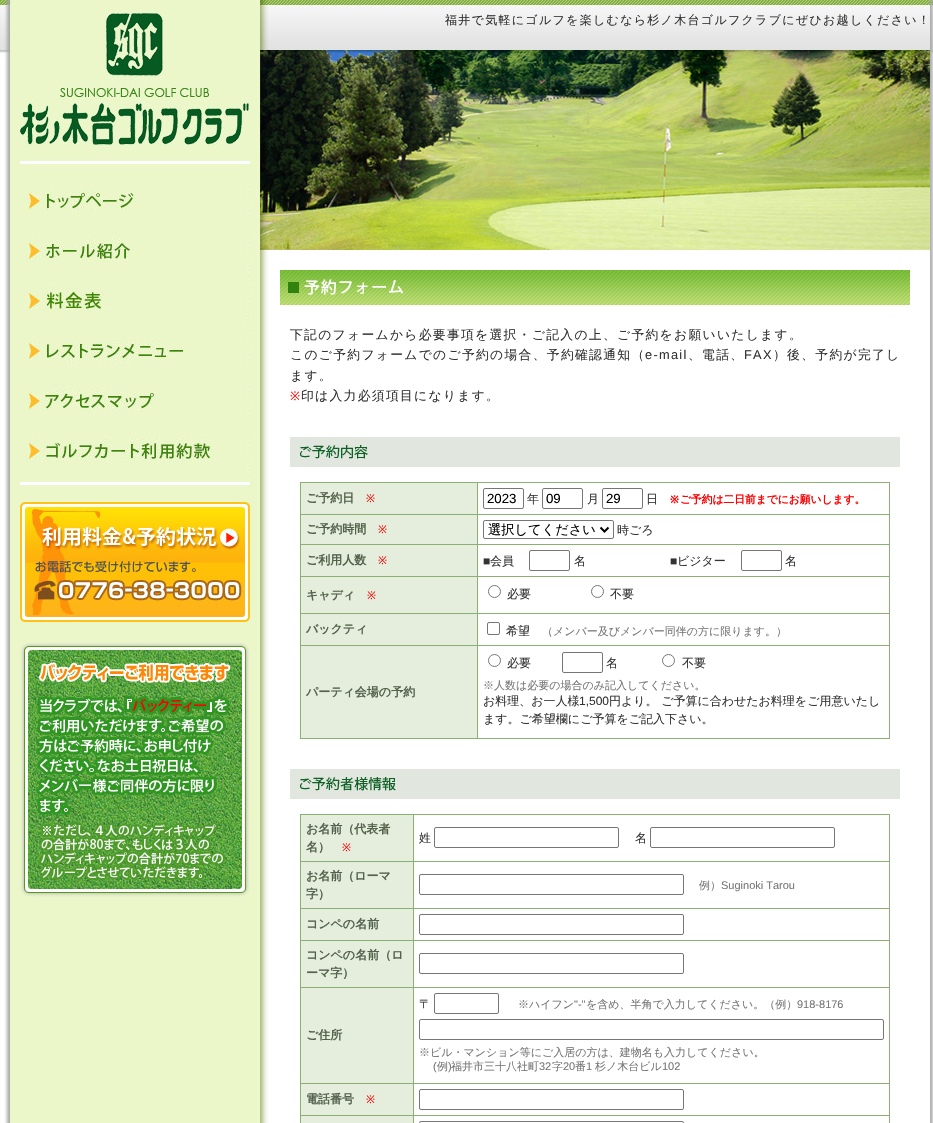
#include "include/core/SkBlurTypes.h"
#include "include/core/SkCanvas.h"
#include "include/core/SkData.h"
#include "include/core/SkFont.h"
#include "include/core/SkFontMgr.h"
#include "include/core/SkImage.h"
#include "include/core/SkMaskFilter.h"
#include "include/core/SkPaint.h"
#include "include/core/SkPathBuilder.h"
#include "include/core/SkTextBlob.h"
#include "include/effects/SkDashPathEffect.h"
#include "include/effects/SkGradientShader.h"
#include "include/utils/SkParsePath.h"

extern sk_sp<SkFontMgr> fontMgr;

void draw(SkCanvas* canvas) {
  SkPaint p;
  p.setAntiAlias(true);
  auto spacedText = [&](const char* s, float x, float y, const SkFont& font, const SkPaint& ink, float letter, float word) {
    std::vector<SkGlyphID> glyphs(font.countText(s, strlen(s), SkTextEncoding::kUTF8));
    std::vector<float> xs(glyphs.size());
    font.textToGlyphs(s, strlen(s), SkTextEncoding::kUTF8, glyphs);
    font.getXPos(glyphs, xs, x);
    float extra = 0;
    for (size_t i = 0; i < glyphs.size(); i++) {
      xs[i] += extra;
      extra += letter + word * (glyphs[i] == font.unicharToGlyph(' '));
    }
    canvas->drawTextBlob(SkTextBlob::MakeFromPosHGlyphs(glyphs, xs, y, font), 0, 0, ink);
  };
  canvas->clear(SK_ColorWHITE);
  canvas->drawImageRect(SkImages::DeferredFromEncodedData(SkData::MakeFromFileName("images/1.png")), SkRect::MakeLTRB(0, 56, 933, 1123), SkSamplingOptions());
  canvas->drawImageRect(SkImages::DeferredFromEncodedData(SkData::MakeFromFileName("images/2.png")), SkRect::MakeLTRB(0, 0, 933, 56), SkSamplingOptions());
  canvas->drawImageRect(SkImages::DeferredFromEncodedData(SkData::MakeFromFileName("images/3.png")), SkRect::MakeLTRB(20, 10, 250, 146), SkSamplingOptions());
  p.setColor(SkColorSetRGB(252, 255, 255));
  canvas->drawRect(SkRect::MakeLTRB(20, 161, 250, 164), p);
  canvas->drawImageRect(SkImages::DeferredFromEncodedData(SkData::MakeFromFileName("images/4.png")), SkRect::MakeLTRB(28, 181, 250, 477), SkSamplingOptions());
  canvas->drawRect(SkRect::MakeLTRB(20, 482, 250, 485), p);
  canvas->drawImageRect(SkImages::DeferredFromEncodedData(SkData::MakeFromFileName("images/5.png")), SkRect::MakeLTRB(20, 502, 250, 622), SkSamplingOptions());
  canvas->drawImageRect(SkImages::DeferredFromEncodedData(SkData::MakeFromFileName("images/6.png")), SkRect::MakeLTRB(20, 642, 250, 897), SkSamplingOptions());
  canvas->drawImageRect(SkImages::DeferredFromEncodedData(SkData::MakeFromFileName("images/7.png")), SkRect::MakeLTRB(260, 50, 930, 250), SkSamplingOptions());
  canvas->drawImageRect(SkImages::DeferredFromEncodedData(SkData::MakeFromFileName("images/8.png")), SkRect::MakeLTRB(280, 270, 910, 305), SkSamplingOptions());
  canvas->drawImageRect(SkImages::DeferredFromEncodedData(SkData::MakeFromFileName("images/9.png")), SkRect::MakeLTRB(290, 437, 900, 467), SkSamplingOptions());
  p.setColor(SkColorSetRGB(138, 176, 115));
  canvas->drawRect(SkRect::MakeLTRB(300, 482, 890, 483), p);
  canvas->drawRect(SkRect::MakeLTRB(300, 482, 301, 739), p);
  p.setColor(SkColorSetRGB(229, 238, 221));
  canvas->drawRect(SkRect::MakeLTRB(301, 483, 477, 514), p);
  p.setColor(SkColorSetRGB(138, 176, 115));
  canvas->drawRect(SkRect::MakeLTRB(477, 483, 478, 739), p);
  canvas->drawRect(SkRect::MakeLTRB(301, 514, 478, 515), p);
  canvas->drawRect(SkRect::MakeLTRB(889, 483, 890, 739), p);
  canvas->drawRect(SkRect::MakeLTRB(478, 514, 890, 515), p);
  p.setStyle(SkPaint::kStroke_Style);
  p.setStrokeWidth(1);
  p.setColor(SkColorSetRGB(118, 118, 118));
  canvas->drawRoundRect(SkRect::MakeLTRB(483.5f, 488.5f, 523.5f, 508.5f), 1.5f, 1.5f, p);
  canvas->drawRoundRect(SkRect::MakeLTRB(542.5f, 488.5f, 582.5f, 508.5f), 1.5f, 1.5f, p);
  canvas->drawRoundRect(SkRect::MakeLTRB(602.5f, 488.5f, 642.5f, 508.5f), 1.5f, 1.5f, p);
  p.setStyle(SkPaint::kFill_Style);
  p.setColor(SkColorSetRGB(229, 238, 221));
  canvas->drawRect(SkRect::MakeLTRB(301, 515, 477, 544), p);
  p.setColor(SkColorSetRGB(138, 176, 115));
  canvas->drawRect(SkRect::MakeLTRB(301, 544, 890, 545), p);
  p.setStyle(SkPaint::kStroke_Style);
  p.setColor(SkColorSetRGB(118, 118, 118));
  canvas->drawRoundRect(SkRect::MakeLTRB(483.5f, 520.5f, 613.5f, 538.5f), 1.5f, 1.5f, p);
  p.setStrokeWidth(2);
  p.setColor(SK_ColorBLACK);
  canvas->drawPath(SkPathBuilder().moveTo(600.5f, 527.5f).lineTo(604.5f, 531.5f).lineTo(608.5f, 527.5f).detach(), p);
  p.setStyle(SkPaint::kFill_Style);
  p.setColor(SkColorSetRGB(229, 238, 221));
  canvas->drawRect(SkRect::MakeLTRB(301, 545, 477, 576), p);
  p.setColor(SkColorSetRGB(138, 176, 115));
  canvas->drawRect(SkRect::MakeLTRB(301, 576, 890, 577), p);
  p.setStyle(SkPaint::kStroke_Style);
  p.setStrokeWidth(1);
  p.setColor(SkColorSetRGB(118, 118, 118));
  canvas->drawRoundRect(SkRect::MakeLTRB(529.5f, 550.5f, 569.5f, 570.5f), 1.5f, 1.5f, p);
  canvas->drawRoundRect(SkRect::MakeLTRB(741.5f, 550.5f, 781.5f, 570.5f), 1.5f, 1.5f, p);
  p.setStyle(SkPaint::kFill_Style);
  p.setColor(SkColorSetRGB(229, 238, 221));
  canvas->drawRect(SkRect::MakeLTRB(301, 577, 477, 613), p);
  p.setColor(SkColorSetRGB(138, 176, 115));
  canvas->drawRect(SkRect::MakeLTRB(301, 613, 890, 614), p);
  p.setStyle(SkPaint::kStroke_Style);
  p.setColor(SkColorSetRGB(118, 118, 118));
  canvas->drawCircle(494.5f, 591.5f, 6, p);
  canvas->drawCircle(597.5f, 591.5f, 6, p);
  p.setStyle(SkPaint::kFill_Style);
  p.setColor(SkColorSetRGB(229, 238, 221));
  canvas->drawRect(SkRect::MakeLTRB(301, 614, 477, 645), p);
  p.setColor(SkColorSetRGB(138, 176, 115));
  canvas->drawRect(SkRect::MakeLTRB(301, 645, 890, 646), p);
  p.setStyle(SkPaint::kStroke_Style);
  p.setColor(SkColorSetRGB(118, 118, 118));
  canvas->drawRoundRect(SkRect::MakeLTRB(487.5f, 622.5f, 499.5f, 634.5f), 1.5f, 1.5f, p);
  p.setStyle(SkPaint::kFill_Style);
  p.setColor(SkColorSetRGB(229, 238, 221));
  canvas->drawRect(SkRect::MakeLTRB(301, 646, 477, 738), p);
  p.setColor(SkColorSetRGB(138, 176, 115));
  canvas->drawRect(SkRect::MakeLTRB(301, 738, 890, 739), p);
  p.setStyle(SkPaint::kStroke_Style);
  p.setColor(SkColorSetRGB(118, 118, 118));
  canvas->drawCircle(494.5f, 660.5f, 6, p);
  canvas->drawRoundRect(SkRect::MakeLTRB(562.5f, 652.5f, 602.5f, 672.5f), 1.5f, 1.5f, p);
  canvas->drawCircle(668.5f, 660.5f, 6, p);
  canvas->drawImageRect(SkImages::DeferredFromEncodedData(SkData::MakeFromFileName("images/10.png")), SkRect::MakeLTRB(290, 769, 900, 799), SkSamplingOptions());
  p.setStyle(SkPaint::kFill_Style);
  p.setColor(SkColorSetRGB(138, 176, 115));
  canvas->drawRect(SkRect::MakeLTRB(300, 814, 890, 815), p);
  canvas->drawRect(SkRect::MakeLTRB(300, 814, 301, 1123), p);
  p.setColor(SkColorSetRGB(229, 238, 221));
  canvas->drawRect(SkRect::MakeLTRB(301, 815, 413, 861), p);
  p.setColor(SkColorSetRGB(138, 176, 115));
  canvas->drawRect(SkRect::MakeLTRB(413, 815, 414, 1116), p);
  canvas->drawRect(SkRect::MakeLTRB(301, 861, 414, 862), p);
  canvas->drawRect(SkRect::MakeLTRB(889, 815, 890, 1123), p);
  canvas->drawRect(SkRect::MakeLTRB(414, 861, 890, 862), p);
  p.setStyle(SkPaint::kStroke_Style);
  p.setColor(SkColorSetRGB(118, 118, 118));
  canvas->drawRoundRect(SkRect::MakeLTRB(434.5f, 827.5f, 618.5f, 847.5f), 1.5f, 1.5f, p);
  canvas->drawRoundRect(SkRect::MakeLTRB(650.5f, 827.5f, 834.5f, 847.5f), 1.5f, 1.5f, p);
  p.setStyle(SkPaint::kFill_Style);
  p.setColor(SkColorSetRGB(229, 238, 221));
  canvas->drawRect(SkRect::MakeLTRB(301, 862, 413, 908), p);
  p.setColor(SkColorSetRGB(138, 176, 115));
  canvas->drawRect(SkRect::MakeLTRB(301, 908, 890, 909), p);
  p.setStyle(SkPaint::kStroke_Style);
  p.setColor(SkColorSetRGB(118, 118, 118));
  canvas->drawRoundRect(SkRect::MakeLTRB(419.5f, 874.5f, 683.5f, 894.5f), 1.5f, 1.5f, p);
  p.setStyle(SkPaint::kFill_Style);
  p.setColor(SkColorSetRGB(229, 238, 221));
  canvas->drawRect(SkRect::MakeLTRB(301, 909, 413, 940), p);
  p.setColor(SkColorSetRGB(138, 176, 115));
  canvas->drawRect(SkRect::MakeLTRB(301, 940, 890, 941), p);
  p.setStyle(SkPaint::kStroke_Style);
  p.setColor(SkColorSetRGB(118, 118, 118));
  canvas->drawRoundRect(SkRect::MakeLTRB(419.5f, 914.5f, 683.5f, 934.5f), 1.5f, 1.5f, p);
  p.setStyle(SkPaint::kFill_Style);
  p.setColor(SkColorSetRGB(229, 238, 221));
  canvas->drawRect(SkRect::MakeLTRB(301, 941, 413, 987), p);
  p.setColor(SkColorSetRGB(138, 176, 115));
  canvas->drawRect(SkRect::MakeLTRB(301, 987, 890, 988), p);
  p.setStyle(SkPaint::kStroke_Style);
  p.setColor(SkColorSetRGB(118, 118, 118));
  canvas->drawRoundRect(SkRect::MakeLTRB(419.5f, 953.5f, 683.5f, 973.5f), 1.5f, 1.5f, p);
  p.setStyle(SkPaint::kFill_Style);
  p.setColor(SkColorSetRGB(229, 238, 221));
  canvas->drawRect(SkRect::MakeLTRB(301, 988, 413, 1083), p);
  p.setColor(SkColorSetRGB(138, 176, 115));
  canvas->drawRect(SkRect::MakeLTRB(301, 1083, 890, 1084), p);
  p.setStyle(SkPaint::kStroke_Style);
  p.setColor(SkColorSetRGB(118, 118, 118));
  canvas->drawRoundRect(SkRect::MakeLTRB(434.5f, 993.5f, 498.5f, 1013.5f), 1.5f, 1.5f, p);
  canvas->drawRoundRect(SkRect::MakeLTRB(419.5f, 1019.5f, 883.5f, 1039.5f), 1.5f, 1.5f, p);
  p.setStyle(SkPaint::kFill_Style);
  p.setColor(SkColorSetRGB(229, 238, 221));
  canvas->drawRect(SkRect::MakeLTRB(301, 1084, 413, 1115), p);
  p.setColor(SkColorSetRGB(138, 176, 115));
  canvas->drawRect(SkRect::MakeLTRB(301, 1115, 890, 1116), p);
  p.setStyle(SkPaint::kStroke_Style);
  p.setColor(SkColorSetRGB(118, 118, 118));
  canvas->drawRoundRect(SkRect::MakeLTRB(419.5f, 1089.5f, 683.5f, 1109.5f), 1.5f, 1.5f, p);
  p.setStyle(SkPaint::kFill_Style);
  p.setColor(SkColorSetRGB(229, 238, 221));
  canvas->drawRect(SkRect::MakeLTRB(301, 1116, 414, 1123), p);
  p.setColor(SkColorSetRGB(138, 176, 115));
  canvas->drawRect(SkRect::MakeLTRB(413, 1116, 414, 1123), p);
  p.setStyle(SkPaint::kStroke_Style);
  p.setColor(SkColorSetRGB(118, 118, 118));
  canvas->drawRoundRect(SkRect::MakeLTRB(419.5f, 1121.5f, 683.5f, 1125.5f), 1.5f, 1.5f, p);
  SkFont font1(fontMgr->matchFamilyStyle("WenQuanYi Zen Hei", SkFontStyle(500, SkFontStyle::kNormal_Width, SkFontStyle::kUpright_Slant)), 12);
  font1.setSubpixel(true);
  p.setStyle(SkPaint::kFill_Style);
  p.setColor(SkColorSetRGB(51, 51, 51));
  spacedText("福井で気軽にゴルフを楽しむなら杉ノ木台ゴルフクラブにぜひお越しください！", 445, 24, font1, p, 1.3f, 0);
  SkFont font2(fontMgr->matchFamilyStyle("WenQuanYi Zen Hei", SkFontStyle(500, SkFontStyle::kNormal_Width, SkFontStyle::kUpright_Slant)), 12.8f);
  font2.setSubpixel(true);
  spacedText("下記のフォームから必要事項を選択・ご記入の上、ご予約をお願いいたします。", 290, 339, font2, p, 1.3f, 0);
  spacedText("このご予約フォームでのご予約の場合、予約確認通知（", 290, 359, font2, p, 1.3f, 0);
  SkFont font3(fontMgr->matchFamilyStyle("Liberation Sans", SkFontStyle::Normal()), 12.8f);
  font3.setSubpixel(true);
  spacedText("e-mail", 645, 359, font3, p, 1.3f, 0);
  spacedText("、電話、", 688, 359, font2, p, 1.3f, 0);
  spacedText("FAX", 744, 359, font3, p, 1.3f, 0);
  spacedText("）後、予約が完了し", 773, 359, font2, p, 1.3f, 0);
  spacedText("ます。", 290, 380, font2, p, 1.3f, 0);
  SkFont font4(fontMgr->matchFamilyStyle("Noto Sans", SkFontStyle::Normal()), 12);
  font4.setSubpixel(true);
  p.setColor(SkColorSetRGB(255, 0, 0));
  spacedText("※", 290, 400, font4, p, 1.3f, 0);
  p.setColor(SkColorSetRGB(51, 51, 51));
  spacedText("印は入力必須項目になります。", 301, 400, font2, p, 1.3f, 0);
  SkFont font5(fontMgr->matchFamilyStyle("WenQuanYi Zen Hei", SkFontStyle::Bold()), 12);
  font5.setSubpixel(true);
  p.setColor(SkColorSetRGB(84, 97, 75));
  canvas->drawString("ご予約日", 306, 502, font5, p);
  SkFont font6(fontMgr->matchFamilyStyle("Noto Sans", SkFontStyle::Normal()), 10.75f);
  font6.setSubpixel(true);
  p.setColor(SkColorSetRGB(255, 0, 0));
  canvas->drawString("※", 366, 502, font6, p);
  SkFont font7(fontMgr->matchFamilyStyle("Liberation Sans", SkFontStyle::Normal()), 13.25f);
  font7.setSubpixel(true);
  p.setColor(SK_ColorBLACK);
  canvas->drawString("2023", 487, 503, font7, p);
  p.setColor(SkColorSetRGB(51, 51, 51));
  canvas->drawString("年", 527, 503, font1, p);
  p.setColor(SK_ColorBLACK);
  canvas->drawString("09", 546, 503, font7, p);
  p.setColor(SkColorSetRGB(51, 51, 51));
  canvas->drawString("月", 587, 503, font1, p);
  p.setColor(SK_ColorBLACK);
  canvas->drawString("29", 606, 503, font7, p);
  p.setColor(SkColorSetRGB(51, 51, 51));
  canvas->drawString("日", 646, 503, font1, p);
  SkFont font8(fontMgr->matchFamilyStyle("Noto Sans", SkFontStyle::Bold()), 10.75f);
  font8.setSubpixel(true);
  p.setColor(SkColorSetRGB(255, 0, 0));
  canvas->drawString("※", 670, 503, font8, p);
  SkFont font9(fontMgr->matchFamilyStyle("WenQuanYi Zen Hei", SkFontStyle::Bold()), 10.75f);
  font9.setSubpixel(true);
  canvas->drawString("ご予約は二日前までにお願いします。", 680, 503, font9, p);
  p.setColor(SkColorSetRGB(84, 97, 75));
  canvas->drawString("ご予約時間", 306, 533, font5, p);
  p.setColor(SkColorSetRGB(255, 0, 0));
  canvas->drawString("※", 378, 533, font6, p);
  SkFont font10(fontMgr->matchFamilyStyle("WenQuanYi Zen Hei", SkFontStyle(500, SkFontStyle::kNormal_Width, SkFontStyle::kUpright_Slant)), 13.25f);
  font10.setSubpixel(true);
  p.setColor(SK_ColorBLACK);
  canvas->drawString("選択してください", 488, 534, font10, p);
  p.setColor(SkColorSetRGB(51, 51, 51));
  canvas->drawString("時ごろ", 617, 534, font1, p);
  p.setColor(SkColorSetRGB(84, 97, 75));
  canvas->drawString("ご利用人数", 306, 564, font5, p);
  p.setColor(SkColorSetRGB(255, 0, 0));
  canvas->drawString("※", 378, 564, font6, p);
  SkFont font11(fontMgr->matchFamilyStyle("Liberation Sans", SkFontStyle::Normal()), 12);
  font11.setSubpixel(true);
  p.setColor(SkColorSetRGB(51, 51, 51));
  canvas->drawString("■", 483, 565, font11, p);
  canvas->drawString("会員", 490, 565, font1, p);
  canvas->drawString("名", 574, 565, font1, p);
  canvas->drawString("■", 670, 565, font11, p);
  canvas->drawString("ビジター", 677, 565, font1, p);
  canvas->drawString("名", 785, 565, font1, p);
  p.setColor(SkColorSetRGB(84, 97, 75));
  canvas->drawString("キャディ", 306, 599, font5, p);
  p.setColor(SkColorSetRGB(255, 0, 0));
  canvas->drawString("※", 367, 599, font6, p);
  p.setColor(SkColorSetRGB(51, 51, 51));
  canvas->drawString("必要", 507, 598, font1, p);
  canvas->drawString("不要", 610, 598, font1, p);
  p.setColor(SkColorSetRGB(84, 97, 75));
  canvas->drawString("バックティ", 306, 633, font5, p);
  p.setColor(SkColorSetRGB(51, 51, 51));
  canvas->drawString("希望", 506, 635, font1, p);
  SkFont font12(fontMgr->matchFamilyStyle("WenQuanYi Zen Hei", SkFontStyle(500, SkFontStyle::kNormal_Width, SkFontStyle::kUpright_Slant)), 11);
  font12.setSubpixel(true);
  p.setColor(SkColorSetRGB(119, 119, 119));
  canvas->drawString("（メンバー及びメンバー同伴の方に限ります。）", 542, 635, font12, p);
  p.setColor(SkColorSetRGB(84, 97, 75));
  canvas->drawString("パーティ会場の予約", 306, 696, font5, p);
  p.setColor(SkColorSetRGB(51, 51, 51));
  canvas->drawString("必要", 507, 667, font1, p);
  canvas->drawString("名", 606, 667, font1, p);
  canvas->drawString("不要", 682, 667, font1, p);
  p.setColor(SkColorSetRGB(119, 119, 119));
  canvas->drawString("※人数は必要の場合のみ記入してください。", 483, 689, font12, p);
  p.setColor(SkColorSetRGB(51, 51, 51));
  canvas->drawString("お料理、お一人様", 483, 705, font1, p);
  canvas->drawString("1,500", 579, 705, font11, p);
  canvas->drawString("円より。 ご予算に合わせたお料理をご用意いたし", 609, 705, font1, p);
  canvas->drawString("ます。ご希望欄にご予算をご記入下さい。", 483, 723, font1, p);
  p.setColor(SkColorSetRGB(84, 97, 75));
  canvas->drawString("お名前（代表者", 306, 833, font5, p);
  canvas->drawString("名）", 306, 851, font5, p);
  p.setColor(SkColorSetRGB(255, 0, 0));
  canvas->drawString("※", 342, 851, font6, p);
  p.setColor(SkColorSetRGB(51, 51, 51));
  canvas->drawString("姓", 419, 842, font1, p);
  canvas->drawString("名", 635, 842, font1, p);
  p.setColor(SkColorSetRGB(84, 97, 75));
  canvas->drawString("お名前（ローマ", 306, 880, font5, p);
  canvas->drawString("字）", 306, 898, font5, p);
  p.setColor(SkColorSetRGB(119, 119, 119));
  canvas->drawString("例）", 699, 889, font12, p);
  SkFont font13(fontMgr->matchFamilyStyle("Liberation Sans", SkFontStyle::Normal()), 11);
  font13.setSubpixel(true);
  canvas->drawString("Suginoki Tarou", 721, 889, font13, p);
  p.setColor(SkColorSetRGB(84, 97, 75));
  canvas->drawString("コンペの名前", 306, 928, font5, p);
  canvas->drawString("コンペの名前（ロ", 306, 959, font5, p);
  canvas->drawString("ーマ字）", 306, 977, font5, p);
  canvas->drawString("ご住所", 306, 1039, font5, p);
  p.setColor(SkColorSetRGB(51, 51, 51));
  canvas->drawString("〒", 419, 1008, font1, p);
  p.setColor(SkColorSetRGB(119, 119, 119));
  canvas->drawString("※ハイフン", 518, 1008, font12, p);
  canvas->drawString("\"-\"", 574, 1008, font13, p);
  canvas->drawString("を含め、半角で入力してください。（例）", 586, 1008, font12, p);
  canvas->drawString("918-8176", 797, 1008, font13, p);
  canvas->drawString("※ビル・マンション等にご入居の方は、建物名も入力してください。", 419, 1056, font12, p);
  canvas->drawString("(", 433, 1070, font13, p);
  canvas->drawString("例", 437, 1070, font12, p);
  canvas->drawString(")", 448, 1070, font13, p);
  canvas->drawString("福井市三十八社町", 451, 1070, font12, p);
  canvas->drawString("32", 539, 1070, font13, p);
  canvas->drawString("字", 552, 1070, font12, p);
  canvas->drawString("20", 563, 1070, font13, p);
  canvas->drawString("番", 575, 1070, font12, p);
  canvas->drawString("1", 586, 1070, font13, p);
  canvas->drawString("杉ノ木台ビル", 595, 1070, font12, p);
  canvas->drawString("102", 662, 1070, font13, p);
  p.setColor(SkColorSetRGB(84, 97, 75));
  canvas->drawString("電話番号", 306, 1103, font5, p);
  p.setColor(SkColorSetRGB(255, 0, 0));
  canvas->drawString("※", 366, 1103, font6, p);
}
